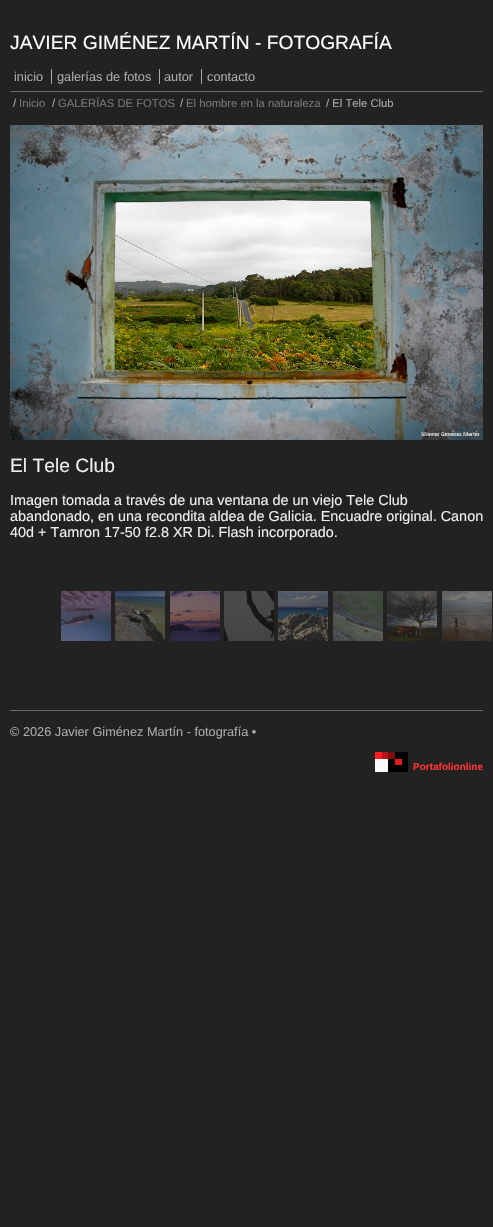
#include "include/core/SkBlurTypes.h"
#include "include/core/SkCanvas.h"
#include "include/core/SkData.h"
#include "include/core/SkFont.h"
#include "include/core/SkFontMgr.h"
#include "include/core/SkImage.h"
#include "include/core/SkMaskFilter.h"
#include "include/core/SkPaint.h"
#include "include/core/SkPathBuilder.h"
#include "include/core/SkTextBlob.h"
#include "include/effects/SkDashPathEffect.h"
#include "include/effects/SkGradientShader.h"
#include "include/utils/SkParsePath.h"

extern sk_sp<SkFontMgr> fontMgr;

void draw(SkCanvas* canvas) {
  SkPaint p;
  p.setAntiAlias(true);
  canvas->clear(SkColorSetRGB(34, 34, 34));
  p.setColor(SkColorSetRGB(106, 106, 106));
  canvas->drawRect(SkRect::MakeLTRB(10, 91, 483, 92), p);
  p.setColor(SkColorSetRGB(170, 170, 170));
  canvas->drawRect(SkRect::MakeLTRB(51, 69, 52, 84), p);
  canvas->drawRect(SkRect::MakeLTRB(159, 69, 160, 84), p);
  canvas->drawRect(SkRect::MakeLTRB(201, 69, 202, 84), p);
  canvas->drawImageRect(SkImages::DeferredFromEncodedData(SkData::MakeFromFileName("images/1.png")), SkRect::MakeLTRB(10, 125, 483, 440), SkSamplingOptions());
  canvas->drawImageRect(SkImages::DeferredFromEncodedData(SkData::MakeFromFileName("images/2.png")), SkRect::MakeLTRB(61, 591, 111, 641), SkSamplingOptions());
  canvas->drawImageRect(SkImages::DeferredFromEncodedData(SkData::MakeFromFileName("images/3.png")), SkRect::MakeLTRB(115, 591, 165, 641), SkSamplingOptions());
  canvas->drawImageRect(SkImages::DeferredFromEncodedData(SkData::MakeFromFileName("images/4.png")), SkRect::MakeLTRB(170, 591, 220, 641), SkSamplingOptions());
  canvas->drawImageRect(SkImages::DeferredFromEncodedData(SkData::MakeFromFileName("images/5.png")), SkRect::MakeLTRB(224, 591, 274, 641), SkSamplingOptions());
  canvas->drawImageRect(SkImages::DeferredFromEncodedData(SkData::MakeFromFileName("images/6.png")), SkRect::MakeLTRB(278, 591, 328, 641), SkSamplingOptions());
  canvas->drawImageRect(SkImages::DeferredFromEncodedData(SkData::MakeFromFileName("images/7.png")), SkRect::MakeLTRB(333, 591, 383, 641), SkSamplingOptions());
  canvas->drawImageRect(SkImages::DeferredFromEncodedData(SkData::MakeFromFileName("images/8.png")), SkRect::MakeLTRB(387, 591, 437, 641), SkSamplingOptions());
  canvas->drawImageRect(SkImages::DeferredFromEncodedData(SkData::MakeFromFileName("images/9.png")), SkRect::MakeLTRB(442, 591, 492, 641), SkSamplingOptions());
  p.setColor(SkColorSetRGB(106, 106, 106));
  canvas->drawRect(SkRect::MakeLTRB(10, 710, 483, 711), p);
  p.setColor(SkColorSetRGB(249, 249, 249));
  canvas->drawRect(SkRect::MakeLTRB(375, 759, 388, 772), p);
  p.setColor(SK_ColorBLACK);
  canvas->drawRect(SkRect::MakeLTRB(388, 752, 408, 772), p);
  p.setColor(SkColorSetRGB(229, 25, 31));
  canvas->drawRect(SkRect::MakeLTRB(395, 759, 402, 765), p);
  p.setColor(SkColorSetRGB(255, 28, 35));
  canvas->drawRect(SkRect::MakeLTRB(375, 752, 382, 759), p);
  p.setColor(SkColorSetRGB(178, 20, 24));
  canvas->drawRect(SkRect::MakeLTRB(382, 752, 388, 759), p);
  p.setColor(SkColorSetRGB(127, 14, 17));
  canvas->drawRect(SkRect::MakeLTRB(388, 752, 395, 759), p);
  SkFont font1(fontMgr->matchFamilyStyle("Liberation Sans", SkFontStyle::Normal()), 19.25f);
  font1.setSubpixel(true);
  p.setColor(SK_ColorWHITE);
  canvas->drawString("JAVIER GIMÉNEZ MARTÍN - FOTOGRAFÍA", 10, 49, font1, p);
  SkFont font2(fontMgr->matchFamilyStyle("Liberation Sans", SkFontStyle::Normal()), 12.75f);
  font2.setSubpixel(true);
  p.setColor(SkColorSetRGB(170, 170, 170));
  canvas->drawString("inicio", 14, 81, font2, p);
  canvas->drawString("galerías de fotos", 57, 81, font2, p);
  canvas->drawString("autor", 164, 81, font2, p);
  canvas->drawString("contacto", 207, 81, font2, p);
  SkFont font3(fontMgr->matchFamilyStyle("Liberation Sans", SkFontStyle::Normal()), 11.25f);
  font3.setSubpixel(true);
  canvas->drawString("/", 13, 107, font3, p);
  p.setColor(SkColorSetRGB(119, 119, 119));
  canvas->drawString("Inicio", 19, 107, font3, p);
  p.setColor(SkColorSetRGB(170, 170, 170));
  canvas->drawString("/", 52, 107, font3, p);
  p.setColor(SkColorSetRGB(119, 119, 119));
  canvas->drawString("GALERÍAS DE FOTOS", 58, 107, font3, p);
  p.setColor(SkColorSetRGB(170, 170, 170));
  canvas->drawString("/", 180, 107, font3, p);
  p.setColor(SkColorSetRGB(119, 119, 119));
  canvas->drawString("El hombre en la naturaleza", 186, 107, font3, p);
  p.setColor(SkColorSetRGB(170, 170, 170));
  canvas->drawString("/ El Tele Club", 326, 107, font3, p);
  p.setColor(SkColorSetRGB(238, 238, 238));
  canvas->drawString("El Tele Club", 10, 472, font1, p);
  SkFont font4(fontMgr->matchFamilyStyle("Liberation Sans", SkFontStyle::Normal()), 14.4f);
  font4.setSubpixel(true);
  canvas->drawString("Imagen tomada a través de una ventana de un viejo Tele Club", 10, 505, font4, p);
  canvas->drawString("abandonado, en una recondita aldea de Galicia. Encuadre original. Canon", 10, 521, font4, p);
  canvas->drawString("40d + Tamron 17-50 f2.8 XR Di. Flash incorporado.", 10, 537, font4, p);
  p.setColor(SkColorSetRGB(170, 170, 170));
  canvas->drawString("© 2026 Javier Giménez Martín - fotografía •", 10, 736, font2, p);
  SkFont font5(fontMgr->matchFamilyStyle("Liberation Sans", SkFontStyle::Bold()), 10);
  font5.setSubpixel(true);
  p.setColor(SkColorSetRGB(255, 51, 51));
  canvas->drawString("Portafolionline", 413, 770, font5, p);
}
